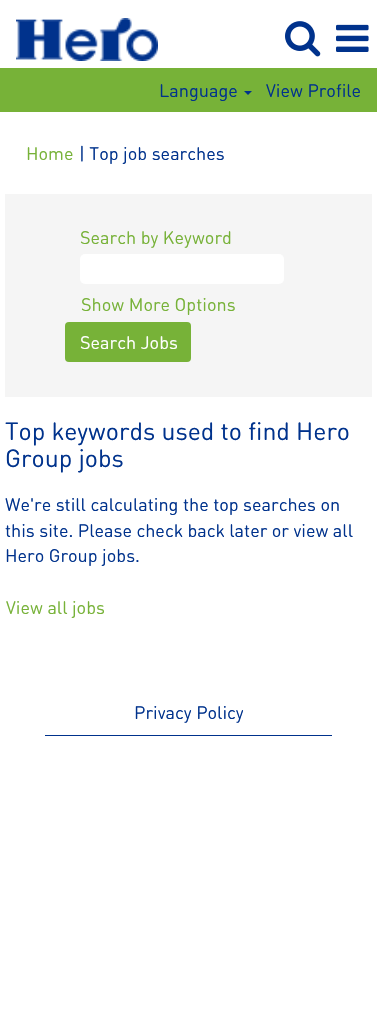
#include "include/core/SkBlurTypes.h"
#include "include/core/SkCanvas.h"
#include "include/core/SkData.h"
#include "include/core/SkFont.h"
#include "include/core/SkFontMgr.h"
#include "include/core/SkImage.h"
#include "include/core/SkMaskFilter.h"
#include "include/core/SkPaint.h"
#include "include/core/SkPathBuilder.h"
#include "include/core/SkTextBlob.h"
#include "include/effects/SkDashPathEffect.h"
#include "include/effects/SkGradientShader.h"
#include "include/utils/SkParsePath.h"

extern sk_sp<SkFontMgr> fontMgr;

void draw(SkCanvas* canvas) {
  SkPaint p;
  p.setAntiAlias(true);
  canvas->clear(SK_ColorWHITE);
  canvas->drawImageRect(SkImages::DeferredFromEncodedData(SkData::MakeFromFileName("images/1.png")), SkRect::MakeLTRB(16, 18, 158, 61), SkSamplingOptions());
  canvas->drawImageRect(SkImages::DeferredFromEncodedData(SkData::MakeFromFileName("images/2.png")), SkRect::MakeLTRB(285, 21, 321, 57), SkSamplingOptions());
  canvas->drawImageRect(SkImages::DeferredFromEncodedData(SkData::MakeFromFileName("images/3.png")), SkRect::MakeLTRB(336, 24, 369, 52), SkSamplingOptions());
  p.setColor(SkColorSetRGB(119, 178, 56));
  canvas->drawRect(SkRect::MakeLTRB(0, 68, 377, 112), p);
  p.setColor(SkColorSetRGB(0, 50, 140));
  canvas->drawPath(SkPathBuilder().moveTo(244, 91).lineTo(252, 91).lineTo(248, 95).close().detach(), p);
  p.setColor(SkColorSetRGB(245, 245, 245));
  canvas->drawRect(SkRect::MakeLTRB(5, 194, 372, 397), p);
  p.setColor(SK_ColorWHITE);
  canvas->drawRoundRect(SkRect::MakeLTRB(80, 254, 284, 284), 5, 5, p);
  p.setColor(SkColorSetRGB(119, 178, 56));
  canvas->drawRoundRect(SkRect::MakeLTRB(65, 322, 191, 362), 4, 4, p);
  p.setColor(SkColorSetRGB(0, 50, 140));
  canvas->drawRect(SkRect::MakeLTRB(45, 735, 332, 736), p);
  SkFont font1(fontMgr->matchFamilyStyle("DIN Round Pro", SkFontStyle::Normal()), 18);
  font1.setSubpixel(true);
  canvas->drawString("Language", 159, 97, font1, p);
  canvas->drawString("View Profile", 266, 97, font1, p);
  p.setColor(SkColorSetRGB(119, 178, 56));
  canvas->drawString("Home", 26, 160, font1, p);
  p.setColor(SkColorSetRGB(0, 50, 140));
  canvas->drawString("| Top job searches", 79, 160, font1, p);
  p.setColor(SkColorSetRGB(119, 178, 56));
  canvas->drawString("Search by Keyword", 80, 244, font1, p);
  canvas->drawString("Show More Options", 81, 311, font1, p);
  p.setColor(SK_ColorWHITE);
  canvas->drawString("Search Jobs", 80, 349, font1, p);
  SkFont font2(fontMgr->matchFamilyStyle("DIN Round Pro", SkFontStyle::Normal()), 24.75f);
  font2.setSubpixel(true);
  p.setColor(SkColorSetRGB(0, 50, 140));
  canvas->drawString("Top keywords used to find Hero", 5, 440, font2, p);
  canvas->drawString("Group jobs", 5, 467, font2, p);
  canvas->drawString("We're still calculating the top searches on", 5, 511, font1, p);
  canvas->drawString("this site. Please check back later or view all", 5, 537, font1, p);
  canvas->drawString("Hero Group jobs.", 5, 562, font1, p);
  p.setColor(SkColorSetRGB(119, 178, 56));
  canvas->drawString("View all jobs", 6, 614, font1, p);
  p.setColor(SkColorSetRGB(0, 50, 140));
  canvas->drawString("Privacy Policy", 134, 719, font1, p);
}
